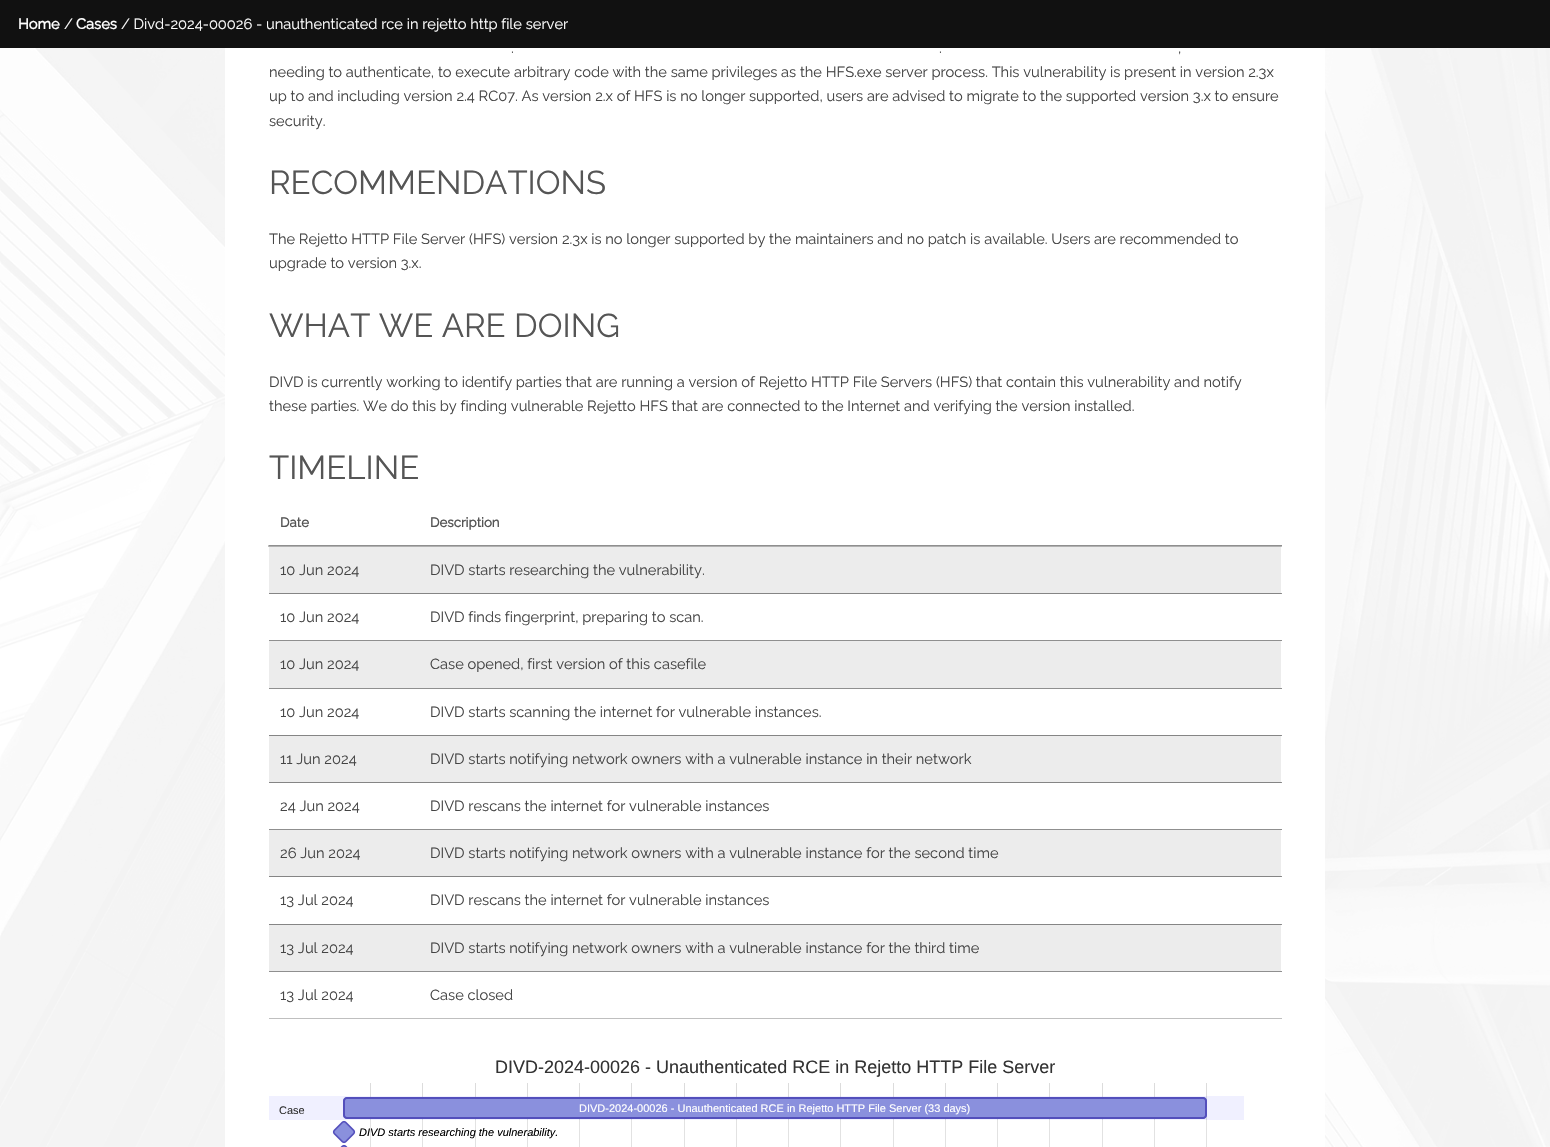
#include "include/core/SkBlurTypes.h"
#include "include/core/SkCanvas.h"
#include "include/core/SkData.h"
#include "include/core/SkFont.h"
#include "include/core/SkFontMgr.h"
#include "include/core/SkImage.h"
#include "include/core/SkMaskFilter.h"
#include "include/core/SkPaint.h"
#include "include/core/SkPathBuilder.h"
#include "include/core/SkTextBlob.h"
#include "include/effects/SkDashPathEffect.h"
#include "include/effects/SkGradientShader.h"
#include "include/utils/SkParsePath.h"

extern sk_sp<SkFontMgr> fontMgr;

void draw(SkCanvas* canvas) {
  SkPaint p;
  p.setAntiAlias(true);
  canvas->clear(SK_ColorWHITE);
  p.setColor(SkColorSetRGB(17, 17, 17));
  canvas->drawRect(SkRect::MakeLTRB(0, 0, 1550, 48), p);
  canvas->drawImageRect(SkImages::DeferredFromEncodedData(SkData::MakeFromFileName("images/1.png")), SkRect::MakeLTRB(0, 48, 1550, 1147), SkSamplingOptions());
  p.setColor(SK_ColorWHITE);
  canvas->drawRect(SkRect::MakeLTRB(225, 48, 1325, 1147), p);
  p.setColor(SkColorSetRGB(236, 236, 236));
  canvas->drawRect(SkRect::MakeLTRB(269, 546, 1281, 594), p);
  p.setColor(SkColorSetRGB(191, 191, 191));
  canvas->drawRect(SkRect::MakeLTRB(269, 545, 1282, 546), p);
  p.setColor(SkColorSetARGB(64, 0, 0, 0));
  canvas->drawRect(SkRect::MakeLTRB(268, 545, 1282, 547), p);
  canvas->drawRect(SkRect::MakeLTRB(269, 593, 1282, 594), p);
  canvas->drawRect(SkRect::MakeLTRB(269, 593, 1282, 594), p);
  p.setColor(SkColorSetRGB(143, 143, 143));
  canvas->drawRect(SkRect::MakeLTRB(269, 640, 1282, 641), p);
  p.setColor(SkColorSetRGB(236, 236, 236));
  canvas->drawRect(SkRect::MakeLTRB(269, 641, 1281, 688), p);
  p.setColor(SkColorSetRGB(143, 143, 143));
  canvas->drawRect(SkRect::MakeLTRB(269, 688, 1282, 689), p);
  p.setColor(SkColorSetRGB(236, 236, 236));
  canvas->drawRect(SkRect::MakeLTRB(269, 735, 1281, 783), p);
  p.setColor(SkColorSetARGB(64, 0, 0, 0));
  canvas->drawRect(SkRect::MakeLTRB(269, 735, 1282, 736), p);
  canvas->drawRect(SkRect::MakeLTRB(269, 735, 1282, 736), p);
  canvas->drawRect(SkRect::MakeLTRB(269, 782, 1282, 783), p);
  canvas->drawRect(SkRect::MakeLTRB(269, 782, 1282, 783), p);
  p.setColor(SkColorSetRGB(143, 143, 143));
  canvas->drawRect(SkRect::MakeLTRB(269, 829, 1282, 830), p);
  p.setColor(SkColorSetRGB(236, 236, 236));
  canvas->drawRect(SkRect::MakeLTRB(269, 830, 1281, 877), p);
  p.setColor(SkColorSetARGB(64, 0, 0, 0));
  canvas->drawRect(SkRect::MakeLTRB(269, 876, 1282, 877), p);
  canvas->drawRect(SkRect::MakeLTRB(269, 876, 1282, 877), p);
  p.setColor(SkColorSetRGB(236, 236, 236));
  canvas->drawRect(SkRect::MakeLTRB(269, 924, 1281, 971), p);
  p.setColor(SkColorSetARGB(64, 0, 0, 0));
  canvas->drawRect(SkRect::MakeLTRB(269, 924, 1282, 925), p);
  canvas->drawRect(SkRect::MakeLTRB(269, 924, 1282, 925), p);
  p.setColor(SkColorSetRGB(143, 143, 143));
  canvas->drawRect(SkRect::MakeLTRB(269, 971, 1282, 972), p);
  p.setColor(SkColorSetRGB(191, 191, 191));
  canvas->drawRect(SkRect::MakeLTRB(269, 1018, 1282, 1019), p);
  canvas->drawImageRect(SkImages::DeferredFromEncodedData(SkData::MakeFromFileName("images/2.png")), SkRect::MakeLTRB(269, 1083, 1244, 1147), SkSamplingOptions());
  SkFont font1(fontMgr->matchFamilyStyle("Raleway", SkFontStyle::Bold()), 14.67f);
  font1.setSubpixel(true);
  p.setColor(SK_ColorWHITE);
  canvas->drawString("Home", 18, 29, font1, p);
  SkFont font2(fontMgr->matchFamilyStyle("Raleway", SkFontStyle(100, SkFontStyle::kNormal_Width, SkFontStyle::kUpright_Slant)), 14.67f);
  font2.setSubpixel(true);
  canvas->drawString("/", 64, 29, font2, p);
  canvas->drawString("Cases", 76, 29, font1, p);
  canvas->drawString("/ Divd-2024-00026 - unauthenticated rce in rejetto http file server", 121, 29, font2, p);
  p.setColor(SkColorSetRGB(68, 68, 68));
  canvas->drawString(".", 511, 53, font2, p);
  canvas->drawString(".", 939, 53, font2, p);
  canvas->drawString(",", 1178, 53, font2, p);
  canvas->drawString("needing to authenticate, to execute arbitrary code with the same privileges as the HFS.exe server process. This vulnerability is present in version 2.3x", 269, 77, font2, p);
  canvas->drawString("up to and including version 2.4 RC07. As version 2.x of HFS is no longer supported, users are advised to migrate to the supported version 3.x to ensure", 269, 101, font2, p);
  canvas->drawString("security.", 269, 126, font2, p);
  SkFont font3(fontMgr->matchFamilyStyle("Raleway", SkFontStyle(100, SkFontStyle::kNormal_Width, SkFontStyle::kUpright_Slant)), 33);
  font3.setSubpixel(true);
  p.setColor(SkColorSetRGB(85, 85, 85));
  canvas->drawString("RECOMMENDATIONS", 269, 194, font3, p);
  p.setColor(SkColorSetRGB(68, 68, 68));
  canvas->drawString("The Rejetto HTTP File Server (HFS) version 2.3x is no longer supported by the maintainers and no patch is available. Users are recommended to", 269, 244, font2, p);
  canvas->drawString("upgrade to version 3.x.", 269, 268, font2, p);
  p.setColor(SkColorSetRGB(85, 85, 85));
  canvas->drawString("WHAT WE ARE DOING", 269, 337, font3, p);
  p.setColor(SkColorSetRGB(68, 68, 68));
  canvas->drawString("DIVD is currently working to identify parties that are running a version of Rejetto HTTP File Servers (HFS) that contain this vulnerability and notify", 269, 387, font2, p);
  canvas->drawString("these parties. We do this by finding vulnerable Rejetto HFS that are connected to the Internet and verifying the version installed.", 269, 411, font2, p);
  p.setColor(SkColorSetRGB(85, 85, 85));
  canvas->drawString("TIMELINE", 269, 479, font3, p);
  SkFont font4(fontMgr->matchFamilyStyle("Raleway", SkFontStyle::Bold()), 13.25f);
  font4.setSubpixel(true);
  canvas->drawString("Date", 280, 527, font4, p);
  canvas->drawString("Description", 430, 527, font4, p);
  p.setColor(SkColorSetRGB(68, 68, 68));
  canvas->drawString("10 Jun 2024", 280, 575, font2, p);
  canvas->drawString("DIVD starts researching the vulnerability.", 430, 575, font2, p);
  canvas->drawString("10 Jun 2024", 280, 622, font2, p);
  canvas->drawString("DIVD finds fingerprint, preparing to scan.", 430, 622, font2, p);
  canvas->drawString("10 Jun 2024", 280, 669, font2, p);
  canvas->drawString("Case opened, first version of this casefile", 430, 669, font2, p);
  canvas->drawString("10 Jun 2024", 280, 717, font2, p);
  canvas->drawString("DIVD starts scanning the internet for vulnerable instances.", 430, 717, font2, p);
  canvas->drawString("11 Jun 2024", 280, 764, font2, p);
  canvas->drawString("DIVD starts notifying network owners with a vulnerable instance in their network", 430, 764, font2, p);
  canvas->drawString("24 Jun 2024", 280, 811, font2, p);
  canvas->drawString("DIVD rescans the internet for vulnerable instances", 430, 811, font2, p);
  canvas->drawString("26 Jun 2024", 280, 858, font2, p);
  canvas->drawString("DIVD starts notifying network owners with a vulnerable instance for the second time", 430, 858, font2, p);
  canvas->drawString("13 Jul 2024", 280, 905, font2, p);
  canvas->drawString("DIVD rescans the internet for vulnerable instances", 430, 905, font2, p);
  canvas->drawString("13 Jul 2024", 280, 953, font2, p);
  canvas->drawString("DIVD starts notifying network owners with a vulnerable instance for the third time", 430, 953, font2, p);
  canvas->drawString("13 Jul 2024", 280, 1000, font2, p);
  canvas->drawString("Case closed", 430, 1000, font2, p);
  SkFont font5(fontMgr->matchFamilyStyle("Liberation Sans", SkFontStyle::Normal()), 18);
  font5.setSubpixel(true);
  p.setColor(SkColorSetRGB(51, 51, 51));
  canvas->drawString("DIVD-2024-00026 - Unauthenticated RCE in Rejetto HTTP File Server", 495, 1073, font5, p);
  SkFont font6(fontMgr->matchFamilyStyle("Liberation Sans", SkFontStyle::Normal()), 11);
  font6.setSubpixel(true);
  canvas->drawString("Case", 279, 1114, font6, p);
  p.setColor(SK_ColorWHITE);
  canvas->drawString("DIVD-2024-00026 - Unauthenticated RCE in Rejetto HTTP File Server (33 days)", 579, 1112, font6, p);
  SkFont font7(fontMgr->matchFamilyStyle("Liberation Sans", SkFontStyle::Italic()), 11);
  font7.setSubpixel(true);
  p.setColor(SK_ColorBLACK);
  canvas->drawString("DIVD starts researching the vulnerability.", 359, 1136, font7, p);
}
